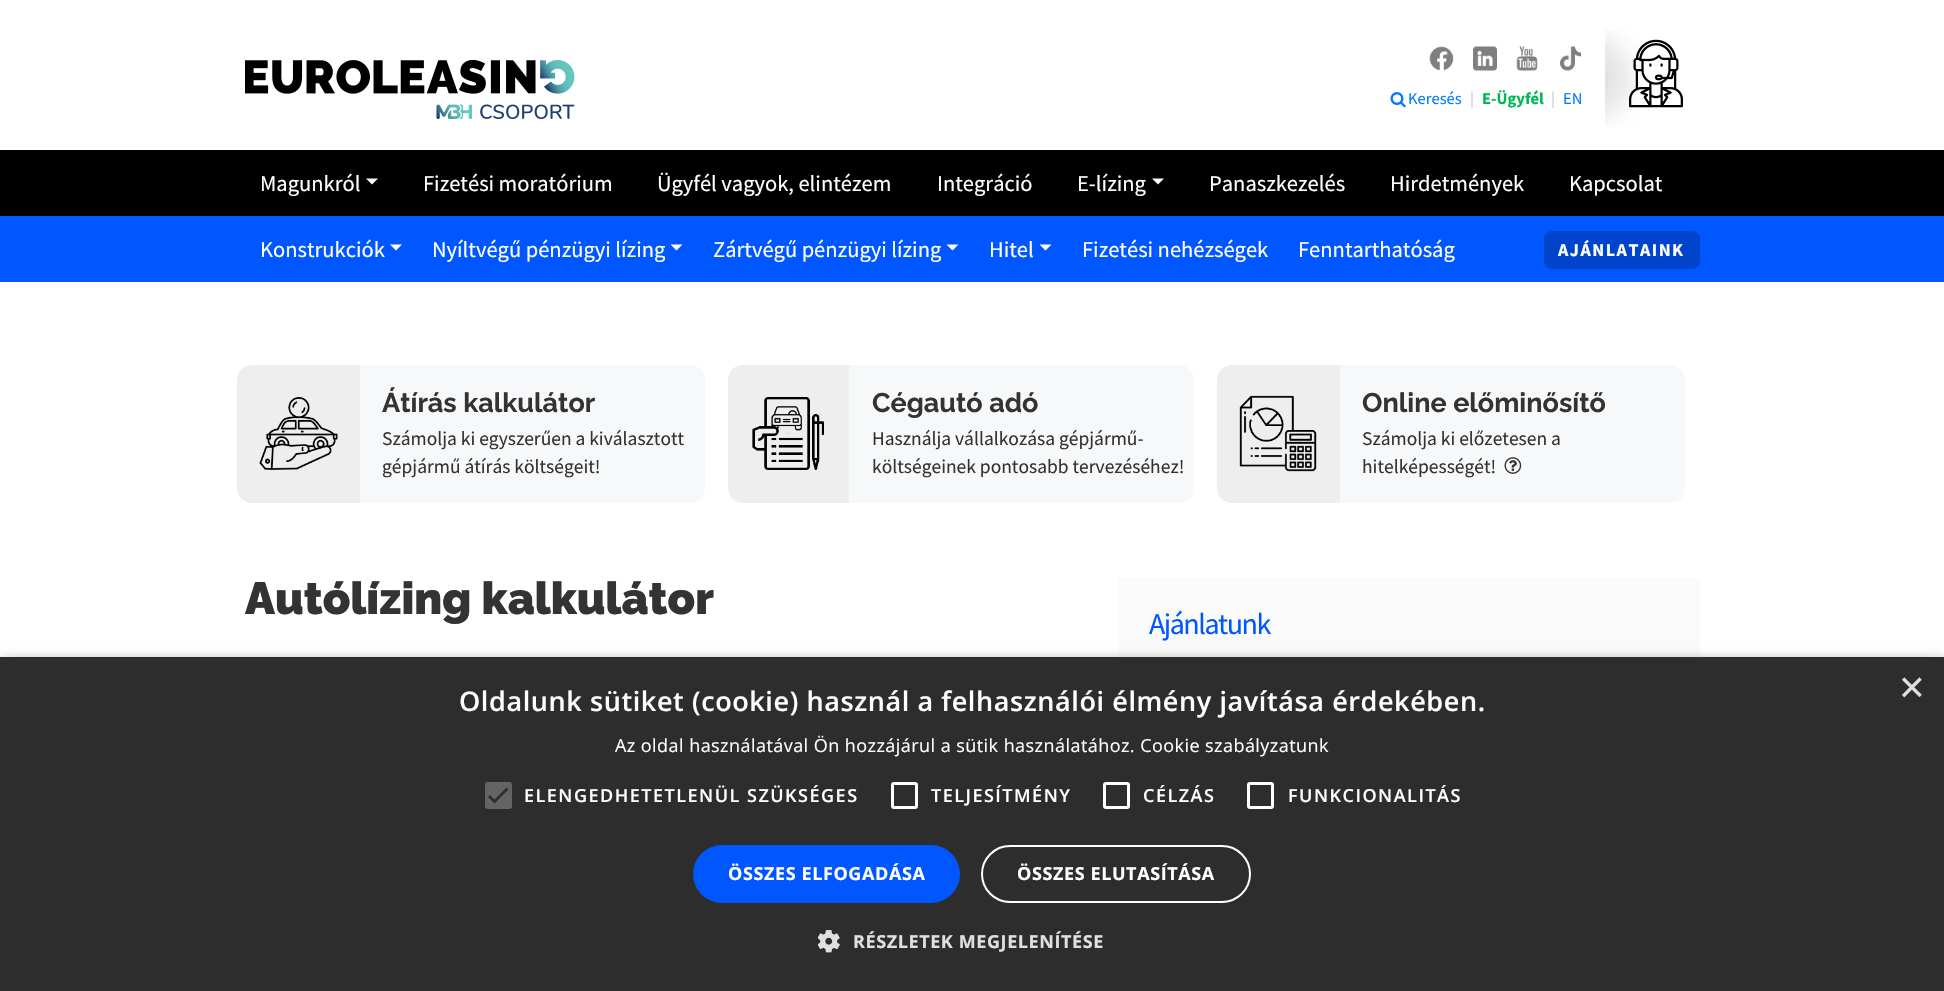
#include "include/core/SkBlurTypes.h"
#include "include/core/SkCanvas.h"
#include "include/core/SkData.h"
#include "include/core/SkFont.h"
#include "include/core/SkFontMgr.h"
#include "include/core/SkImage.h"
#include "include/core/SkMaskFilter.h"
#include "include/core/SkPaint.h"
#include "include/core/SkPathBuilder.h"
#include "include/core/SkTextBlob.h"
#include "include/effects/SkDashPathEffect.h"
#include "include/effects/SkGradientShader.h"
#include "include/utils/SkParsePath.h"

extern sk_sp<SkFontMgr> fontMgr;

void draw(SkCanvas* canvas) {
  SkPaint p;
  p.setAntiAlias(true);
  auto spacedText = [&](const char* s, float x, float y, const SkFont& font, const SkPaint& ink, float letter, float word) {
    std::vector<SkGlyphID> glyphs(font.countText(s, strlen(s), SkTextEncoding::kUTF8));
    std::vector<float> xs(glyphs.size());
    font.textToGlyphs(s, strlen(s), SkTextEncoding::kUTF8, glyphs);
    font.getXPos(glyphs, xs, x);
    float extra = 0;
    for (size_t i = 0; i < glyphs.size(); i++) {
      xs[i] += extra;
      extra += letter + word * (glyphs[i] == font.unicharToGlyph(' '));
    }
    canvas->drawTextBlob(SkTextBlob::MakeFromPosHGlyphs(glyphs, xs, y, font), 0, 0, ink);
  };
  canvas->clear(SK_ColorWHITE);
  canvas->drawImageRect(SkImages::DeferredFromEncodedData(SkData::MakeFromFileName("images/1.png")), SkRect::MakeLTRB(245, 60, 575, 119), SkSamplingOptions());
  canvas->drawImageRect(SkImages::DeferredFromEncodedData(SkData::MakeFromFileName("images/2.png")), SkRect::MakeLTRB(1429, 46, 1454, 71), SkSamplingOptions());
  canvas->drawImageRect(SkImages::DeferredFromEncodedData(SkData::MakeFromFileName("images/3.png")), SkRect::MakeLTRB(1473, 46, 1497, 71), SkSamplingOptions());
  canvas->drawImageRect(SkImages::DeferredFromEncodedData(SkData::MakeFromFileName("images/4.png")), SkRect::MakeLTRB(1516, 46, 1538, 71), SkSamplingOptions());
  canvas->drawImageRect(SkImages::DeferredFromEncodedData(SkData::MakeFromFileName("images/5.png")), SkRect::MakeLTRB(1560, 46, 1581, 71), SkSamplingOptions());
  canvas->drawImageRect(SkImages::DeferredFromEncodedData(SkData::MakeFromFileName("images/6.png")), SkRect::MakeLTRB(1390, 92, 1406, 108), SkSamplingOptions());
  canvas->drawImageRect(SkImages::DeferredFromEncodedData(SkData::MakeFromFileName("images/7.png")), SkRect::MakeLTRB(1605, 30, 1643, 127), SkSamplingOptions());
  canvas->drawImageRect(SkImages::DeferredFromEncodedData(SkData::MakeFromFileName("images/8.png")), SkRect::MakeLTRB(1629, 39, 1683, 108), SkSamplingOptions());
  p.setColor(SK_ColorBLACK);
  canvas->drawRect(SkRect::MakeLTRB(0, 150, 1944, 216), p);
  p.setColor(SK_ColorWHITE);
  canvas->drawPath(SkPathBuilder().moveTo(366, 178.5f).lineTo(378, 178.5f).lineTo(372, 184.5f).close().detach(), p);
  canvas->drawPath(SkPathBuilder().moveTo(1152, 178.5f).lineTo(1164, 178.5f).lineTo(1158, 184.5f).close().detach(), p);
  p.setColor(SkColorSetRGB(0, 86, 255));
  canvas->drawRect(SkRect::MakeLTRB(0, 216, 1944, 282), p);
  p.setColor(SK_ColorWHITE);
  canvas->drawPath(SkPathBuilder().moveTo(390, 244.5f).lineTo(402, 244.5f).lineTo(396, 250.5f).close().detach(), p);
  canvas->drawPath(SkPathBuilder().moveTo(670.5f, 244.5f).lineTo(682.5f, 244.5f).lineTo(676.5f, 250.5f).close().detach(), p);
  canvas->drawPath(SkPathBuilder().moveTo(946.5f, 244.5f).lineTo(958.5f, 244.5f).lineTo(952.5f, 250.5f).close().detach(), p);
  canvas->drawPath(SkPathBuilder().moveTo(1039.5f, 244.5f).lineTo(1051.5f, 244.5f).lineTo(1045.5f, 250.5f).close().detach(), p);
  p.setColor(SkColorSetRGB(0, 68, 204));
  canvas->drawRoundRect(SkRect::MakeLTRB(1544, 231, 1700, 269), 8, 8, p);
  p.setColor(SkColorSetRGB(247, 248, 249));
  canvas->drawRoundRect(SkRect::MakeLTRB(260, 365, 705, 503), 15, 15, p);
  p.setColor(SkColorSetRGB(238, 238, 238));
  canvas->drawPath(SkPathBuilder().moveTo(252, 365).lineTo(360, 365).lineTo(360, 503).lineTo(252, 503).cubicTo(243.5f, 503, 237, 496.5f, 237, 488).lineTo(237, 380).cubicTo(237, 371.5f, 243.5f, 365, 252, 365).close().detach(), p);
  canvas->drawImageRect(SkImages::DeferredFromEncodedData(SkData::MakeFromFileName("images/9.png")), SkRect::MakeLTRB(259, 397, 338, 470), SkSamplingOptions());
  p.setColor(SkColorSetRGB(247, 248, 249));
  canvas->drawRoundRect(SkRect::MakeLTRB(750, 365, 1194, 503), 15, 15, p);
  p.setColor(SkColorSetRGB(238, 238, 238));
  canvas->drawPath(SkPathBuilder().moveTo(743, 365).lineTo(849, 365).lineTo(849, 503).lineTo(743, 503).cubicTo(734.5f, 503, 728, 496.5f, 728, 488).lineTo(728, 380).cubicTo(728, 371.5f, 734.5f, 365, 743, 365).close().detach(), p);
  canvas->drawImageRect(SkImages::DeferredFromEncodedData(SkData::MakeFromFileName("images/10.png")), SkRect::MakeLTRB(752, 397, 824, 470), SkSamplingOptions());
  p.setColor(SkColorSetRGB(247, 248, 249));
  canvas->drawRoundRect(SkRect::MakeLTRB(1239, 365, 1685, 503), 15, 15, p);
  p.setColor(SkColorSetRGB(238, 238, 238));
  canvas->drawPath(SkPathBuilder().moveTo(1232, 365).lineTo(1340, 365).lineTo(1340, 503).lineTo(1232, 503).cubicTo(1223.5f, 503, 1217, 496.5f, 1217, 488).lineTo(1217, 380).cubicTo(1217, 371.5f, 1223.5f, 365, 1232, 365).close().detach(), p);
  canvas->drawImageRect(SkImages::DeferredFromEncodedData(SkData::MakeFromFileName("images/11.png")), SkRect::MakeLTRB(1239, 395, 1317, 472), SkSamplingOptions());
  canvas->drawImageRect(SkImages::DeferredFromEncodedData(SkData::MakeFromFileName("images/12.png")), SkRect::MakeLTRB(1504, 457, 1522, 474), SkSamplingOptions());
  p.setColor(SkColorSetRGB(250, 250, 250));
  canvas->drawRect(SkRect::MakeLTRB(1119, 578, 1700, 657), p);
  p.setColor(SkColorSetARGB(89, 0, 0, 0));
  p.setMaskFilter(SkMaskFilter::MakeBlur(kNormal_SkBlurStyle, 6));
  canvas->drawRect(SkRect::MakeLTRB(2, 660, 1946, 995), p);
  p.setMaskFilter(nullptr);
  p.setColor(SkColorSetRGB(45, 45, 45));
  canvas->drawRect(SkRect::MakeLTRB(0, 657, 1944, 991), p);
  p.setColor(SkColorSetRGB(100, 100, 100));
  canvas->drawRoundRect(SkRect::MakeLTRB(485, 782, 512, 809), 3, 3, p);
  p.setStyle(SkPaint::kStroke_Style);
  p.setStrokeWidth(2.7f);
  p.setColor(SkColorSetRGB(45, 45, 45));
  canvas->drawPath(SkPathBuilder().moveTo(489, 796).lineTo(494.5f, 801.5f).lineTo(507.5f, 788.5f).detach(), p);
  p.setStrokeWidth(3);
  p.setColor(SK_ColorWHITE);
  canvas->drawRoundRect(SkRect::MakeLTRB(892.5f, 783.5f, 916.5f, 807.5f), 1.5f, 1.5f, p);
  canvas->drawRoundRect(SkRect::MakeLTRB(1104.5f, 783.5f, 1128.5f, 807.5f), 1.5f, 1.5f, p);
  canvas->drawRoundRect(SkRect::MakeLTRB(1248.5f, 783.5f, 1272.5f, 807.5f), 1.5f, 1.5f, p);
  p.setStyle(SkPaint::kFill_Style);
  p.setColor(SkColorSetRGB(0, 86, 255));
  canvas->drawRoundRect(SkRect::MakeLTRB(693, 845, 960, 903), 29, 29, p);
  p.setStyle(SkPaint::kStroke_Style);
  p.setStrokeWidth(2);
  p.setColor(SK_ColorWHITE);
  canvas->drawRoundRect(SkRect::MakeLTRB(982, 846, 1250, 902), 28, 28, p);
  canvas->drawImageRect(SkImages::DeferredFromEncodedData(SkData::MakeFromFileName("images/13.png")), SkRect::MakeLTRB(818, 930, 840, 953), SkSamplingOptions());
  SkFont font1(fontMgr->matchFamilyStyle("Source Sans Pro", SkFontStyle::Normal()), 16.5f);
  font1.setSubpixel(true);
  p.setStyle(SkPaint::kFill_Style);
  p.setColor(SkColorSetRGB(0, 123, 255));
  canvas->drawString("Keresés", 1408, 104, font1, p);
  p.setColor(SkColorSetRGB(204, 204, 204));
  canvas->drawString("|", 1470, 104, font1, p);
  SkFont font2(fontMgr->matchFamilyStyle("Source Sans Pro", SkFontStyle::Bold()), 16.5f);
  font2.setSubpixel(true);
  p.setColor(SkColorSetRGB(0, 184, 85));
  canvas->drawString("E-Ügyfél", 1482, 104, font2, p);
  p.setColor(SkColorSetRGB(204, 204, 204));
  canvas->drawString("|", 1551, 104, font1, p);
  p.setColor(SkColorSetRGB(0, 123, 255));
  canvas->drawString("EN", 1563, 104, font1, p);
  SkFont font3(fontMgr->matchFamilyStyle("Source Sans Pro", SkFontStyle::Normal()), 22.5f);
  font3.setSubpixel(true);
  p.setColor(SK_ColorWHITE);
  canvas->drawString("Magunkról", 260, 191, font3, p);
  canvas->drawString("Fizetési moratórium", 423, 191, font3, p);
  canvas->drawString("Ügyfél vagyok, elintézem", 657, 191, font3, p);
  canvas->drawString("Integráció", 937, 191, font3, p);
  canvas->drawString("E-lízing", 1077, 191, font3, p);
  canvas->drawString("Panaszkezelés", 1209, 191, font3, p);
  canvas->drawString("Hirdetmények", 1390, 191, font3, p);
  canvas->drawString("Kapcsolat", 1569, 191, font3, p);
  canvas->drawString("Konstrukciók", 260, 257, font3, p);
  canvas->drawString("Nyíltvégű pénzügyi lízing", 432, 257, font3, p);
  canvas->drawString("Zártvégű pénzügyi lízing", 713, 257, font3, p);
  canvas->drawString("Hitel", 989, 257, font3, p);
  canvas->drawString("Fizetési nehézségek", 1082, 257, font3, p);
  canvas->drawString("Fenntarthatóság", 1298, 257, font3, p);
  SkFont font4(fontMgr->matchFamilyStyle("Source Sans Pro", SkFontStyle::Bold()), 18);
  font4.setSubpixel(true);
  spacedText("AJÁNLATAINK", 1558, 256, font4, p, 1.5f, 0);
  SkFont font5(fontMgr->matchFamilyStyle("Raleway", SkFontStyle::Bold()), 27);
  font5.setSubpixel(true);
  p.setColor(SkColorSetRGB(51, 51, 51));
  canvas->drawString("Átírás kalkulátor", 382, 412, font5, p);
  SkFont font6(fontMgr->matchFamilyStyle("Source Sans Pro", SkFontStyle::Normal()), 19.5f);
  font6.setSubpixel(true);
  canvas->drawString("Számolja ki egyszerűen a kiválasztott", 382, 445, font6, p);
  canvas->drawString("gépjármű átírás költségeit!", 382, 473, font6, p);
  canvas->drawString("Cégautó adó", 872, 412, font5, p);
  canvas->drawString("Használja vállalkozása gépjármű-", 872, 445, font6, p);
  canvas->drawString("költségeinek pontosabb tervezéséhez!", 872, 473, font6, p);
  canvas->drawString("Online előminősítő", 1362, 412, font5, p);
  canvas->drawString("Számolja ki előzetesen a", 1362, 445, font6, p);
  canvas->drawString("hitelképességét!", 1362, 473, font6, p);
  SkFont font7(fontMgr->matchFamilyStyle("Raleway", SkFontStyle(900, SkFontStyle::kNormal_Width, SkFontStyle::kUpright_Slant)), 45);
  font7.setSubpixel(true);
  canvas->drawString("Autólízing kalkulátor", 245, 614, font7, p);
  SkFont font8(fontMgr->matchFamilyStyle("Source Sans Pro", SkFontStyle::Normal()), 30);
  font8.setSubpixel(true);
  p.setColor(SkColorSetRGB(0, 87, 255));
  spacedText("Ajánlatunk", 1149, 634, font8, p, -1.5f, 0);
  SkFont font9(fontMgr->matchFamilyStyle("Liberation Sans", SkFontStyle::Normal()), 44);
  font9.setSubpixel(true);
  p.setColor(SkColorSetRGB(224, 224, 224));
  canvas->drawString("×", 1899, 702, font9, p);
  SkFont font10(fontMgr->matchFamilyStyle("Open Sans", SkFontStyle(600, SkFontStyle::kNormal_Width, SkFontStyle::kUpright_Slant)), 27);
  font10.setSubpixel(true);
  p.setColor(SK_ColorWHITE);
  spacedText("Oldalunk sütiket (cookie) használ a felhasználói élmény javítása érdekében.", 459, 711, font10, p, 0.6f, 0);
  SkFont font11(fontMgr->matchFamilyStyle("Open Sans", SkFontStyle::Normal()), 18);
  font11.setSubpixel(true);
  spacedText("Az oldal használatával Ön hozzájárul a sütik használatához. Cookie szabályzatunk", 615, 752, font11, p, 0.45f, 0);
  SkFont font12(fontMgr->matchFamilyStyle("Open Sans", SkFontStyle(600, SkFontStyle::kNormal_Width, SkFontStyle::kUpright_Slant)), 18);
  font12.setSubpixel(true);
  spacedText("ELENGEDHETETLENÜL SZÜKSÉGES", 524, 802, font12, p, 1.5f, 0);
  spacedText("TELJESÍTMÉNY", 931, 802, font12, p, 1.5f, 0);
  spacedText("CÉLZÁS", 1143, 802, font12, p, 1.5f, 0);
  spacedText("FUNKCIONALITÁS", 1288, 802, font12, p, 1.5f, 0);
  SkFont font13(fontMgr->matchFamilyStyle("Open Sans", SkFontStyle::Bold()), 18);
  font13.setSubpixel(true);
  spacedText("ÖSSZES ELFOGADÁSA", 728, 880, font13, p, 0.6f, 0);
  spacedText("ÖSSZES ELUTASÍTÁSA", 1017, 880, font13, p, 0.6f, 0);
  p.setColor(SkColorSetRGB(224, 224, 224));
  spacedText("RÉSZLETEK MEGJELENÍTÉSE", 853, 948, font13, p, 0.6f, 0);
}
